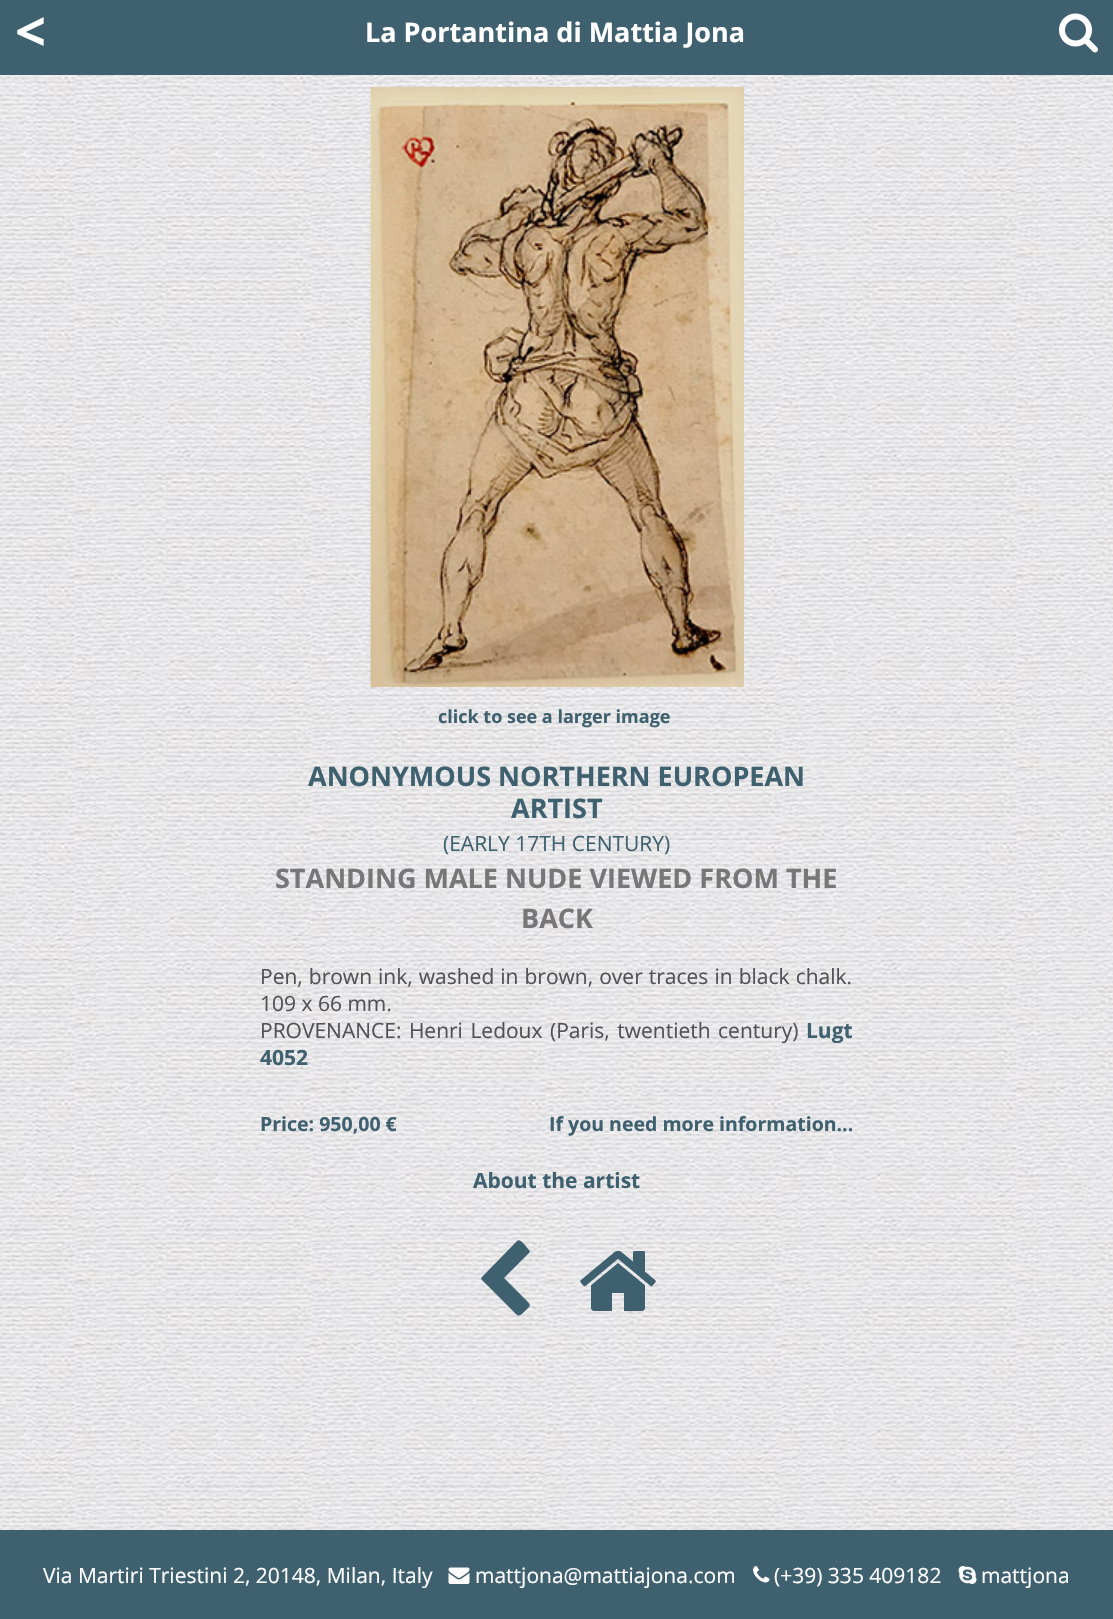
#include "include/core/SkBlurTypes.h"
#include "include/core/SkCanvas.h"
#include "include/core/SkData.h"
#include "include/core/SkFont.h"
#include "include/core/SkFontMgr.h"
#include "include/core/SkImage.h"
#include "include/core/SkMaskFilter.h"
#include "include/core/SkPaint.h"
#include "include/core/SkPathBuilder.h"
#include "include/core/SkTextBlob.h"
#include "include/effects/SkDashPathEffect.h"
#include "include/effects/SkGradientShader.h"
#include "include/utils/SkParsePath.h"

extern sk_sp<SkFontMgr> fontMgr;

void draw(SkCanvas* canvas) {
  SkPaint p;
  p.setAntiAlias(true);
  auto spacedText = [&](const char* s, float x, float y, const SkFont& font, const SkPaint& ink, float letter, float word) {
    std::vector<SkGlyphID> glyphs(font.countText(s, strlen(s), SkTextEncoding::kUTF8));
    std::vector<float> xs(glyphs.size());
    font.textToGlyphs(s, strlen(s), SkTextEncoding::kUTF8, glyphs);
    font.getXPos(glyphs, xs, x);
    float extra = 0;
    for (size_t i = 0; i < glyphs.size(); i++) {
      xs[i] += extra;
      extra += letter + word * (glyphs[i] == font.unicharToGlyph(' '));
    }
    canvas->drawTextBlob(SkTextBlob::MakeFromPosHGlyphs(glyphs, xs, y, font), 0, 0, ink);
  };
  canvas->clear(SK_ColorWHITE);
  canvas->drawImageRect(SkImages::DeferredFromEncodedData(SkData::MakeFromFileName("images/1.png")), SkRect::MakeLTRB(0, 75, 1113, 1530), SkSamplingOptions());
  p.setColor(SkColorSetRGB(62, 96, 111));
  canvas->drawRect(SkRect::MakeLTRB(0, 0, 1113, 75), p);
  canvas->drawImageRect(SkImages::DeferredFromEncodedData(SkData::MakeFromFileName("images/2.png")), SkRect::MakeLTRB(1059, 13, 1098, 53), SkSamplingOptions());
  canvas->drawImageRect(SkImages::DeferredFromEncodedData(SkData::MakeFromFileName("images/3.png")), SkRect::MakeLTRB(370, 87, 744, 687), SkSamplingOptions());
  canvas->drawPath(SkPathBuilder().moveTo(529, 1253).lineTo(504, 1278).lineTo(525, 1299).cubicTo(532, 1306, 531, 1305, 524, 1312).cubicTo(518, 1318, 518, 1316, 511, 1309).lineTo(481, 1279).lineTo(482, 1277).lineTo(517, 1241).cubicTo(519, 1239, 522, 1242, 524, 1244).lineTo(529, 1250).cubicTo(530, 1251, 530, 1252, 529, 1253).close().detach(), p);
  canvas->drawImageRect(SkImages::DeferredFromEncodedData(SkData::MakeFromFileName("images/4.png")), SkRect::MakeLTRB(580, 1250, 656, 1311), SkSamplingOptions());
  canvas->drawRect(SkRect::MakeLTRB(0, 1530, 1113, 1619), p);
  canvas->drawImageRect(SkImages::DeferredFromEncodedData(SkData::MakeFromFileName("images/5.png")), SkRect::MakeLTRB(448, 1567, 470, 1584), SkSamplingOptions());
  canvas->drawImageRect(SkImages::DeferredFromEncodedData(SkData::MakeFromFileName("images/6.png")), SkRect::MakeLTRB(753, 1566, 770, 1583), SkSamplingOptions());
  canvas->drawImageRect(SkImages::DeferredFromEncodedData(SkData::MakeFromFileName("images/7.png")), SkRect::MakeLTRB(958, 1566, 977, 1584), SkSamplingOptions());
  SkFont font1(fontMgr->matchFamilyStyle("Open Sans", SkFontStyle::Bold()), 54);
  font1.setSubpixel(true);
  p.setColor(SK_ColorWHITE);
  canvas->drawString("<", 15, 51, font1, p);
  SkFont font2(fontMgr->matchFamilyStyle("Open Sans", SkFontStyle::Bold()), 27);
  font2.setSubpixel(true);
  canvas->drawString("La Portantina di Mattia Jona", 365, 42, font2, p);
  SkFont font3(fontMgr->matchFamilyStyle("Open Sans", SkFontStyle::Bold()), 18);
  font3.setSubpixel(true);
  p.setColor(SkColorSetRGB(62, 96, 111));
  canvas->drawString("click to see a larger image", 438, 723, font3, p);
  canvas->drawString("ANONYMOUS NORTHERN EUROPEAN", 308, 786, font2, p);
  canvas->drawString("ARTIST", 511, 818, font2, p);
  SkFont font4(fontMgr->matchFamilyStyle("Open Sans", SkFontStyle::Normal()), 21);
  font4.setSubpixel(true);
  canvas->drawString("(EARLY 17TH CENTURY)", 443, 851, font4, p);
  p.setColor(SkColorSetRGB(119, 119, 119));
  canvas->drawString("STANDING MALE NUDE VIEWED FROM THE", 275, 888, font2, p);
  canvas->drawString("BACK", 521, 928, font2, p);
  p.setColor(SkColorSetRGB(81, 81, 87));
  spacedText("Pen, brown ink, washed in brown, over traces in black chalk.", 260, 984, font4, p, 0, 0.6f);
  canvas->drawString("109 x 66 mm.", 260, 1011, font4, p);
  spacedText("PROVENANCE: Henri Ledoux (Paris, twentieth century)", 260, 1038, font4, p, 0, 2);
  SkFont font5(fontMgr->matchFamilyStyle("Open Sans", SkFontStyle::Bold()), 21);
  font5.setSubpixel(true);
  p.setColor(SkColorSetRGB(62, 96, 111));
  canvas->drawString("Lugt", 806, 1038, font5, p);
  canvas->drawString("4052", 260, 1065, font5, p);
  SkFont font6(fontMgr->matchFamilyStyle("Open Sans", SkFontStyle::Bold()), 19.5f);
  font6.setSubpixel(true);
  canvas->drawString("Price: 950,00 €", 260, 1131, font6, p);
  canvas->drawString("If you need more information...", 549, 1131, font6, p);
  canvas->drawString("About the artist", 473, 1188, font5, p);
  p.setColor(SK_ColorWHITE);
  canvas->drawString("Via Martiri Triestini 2, 20148, Milan, Italy", 43, 1583, font4, p);
  canvas->drawString("mattjona@mattiajona.com", 475, 1583, font4, p);
  canvas->drawString("(+39) 335 409182", 774, 1583, font4, p);
  canvas->drawString("mattjona", 981, 1583, font4, p);
}
